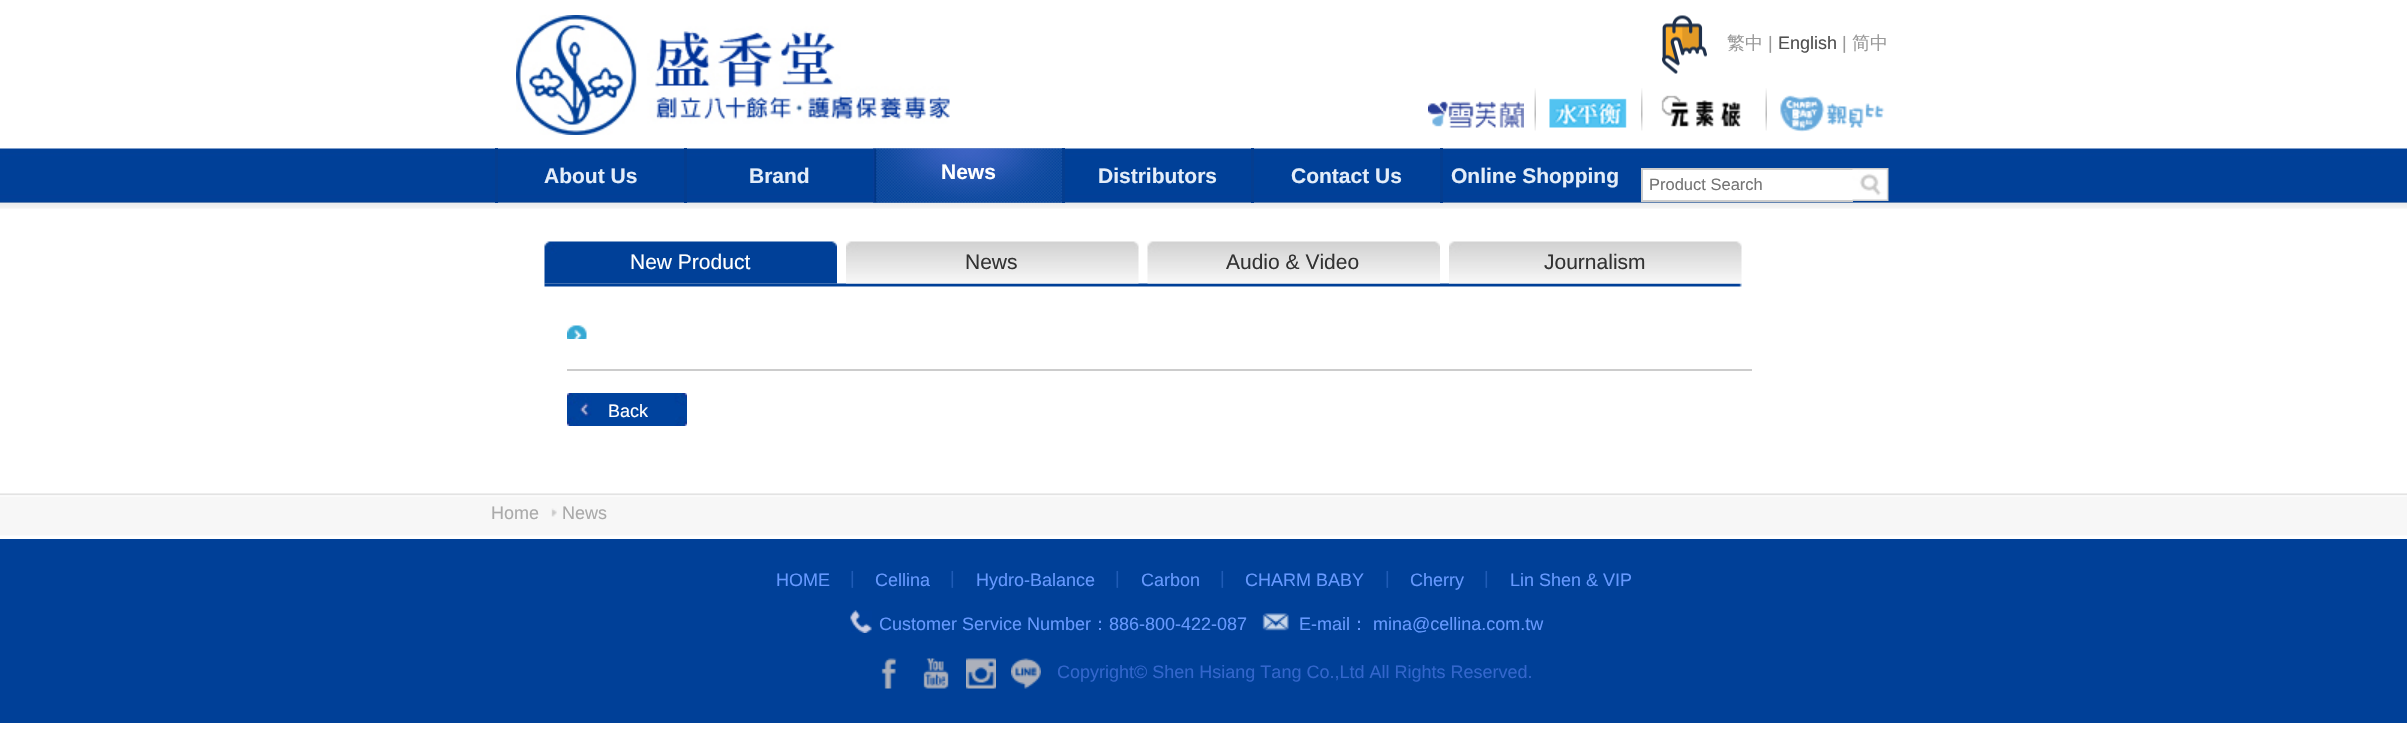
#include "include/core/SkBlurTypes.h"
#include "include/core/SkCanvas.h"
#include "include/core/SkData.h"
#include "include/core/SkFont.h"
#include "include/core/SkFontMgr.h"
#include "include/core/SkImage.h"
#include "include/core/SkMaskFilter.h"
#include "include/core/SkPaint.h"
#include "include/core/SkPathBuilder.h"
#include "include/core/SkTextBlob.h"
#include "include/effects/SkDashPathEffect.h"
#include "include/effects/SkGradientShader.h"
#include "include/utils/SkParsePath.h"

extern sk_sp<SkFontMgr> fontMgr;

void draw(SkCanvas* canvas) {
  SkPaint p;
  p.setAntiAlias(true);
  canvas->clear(SK_ColorWHITE);
  canvas->drawImageRect(SkImages::DeferredFromEncodedData(SkData::MakeFromFileName("images/1.png")), SkRect::MakeLTRB(0, 148, 2407, 209), SkSamplingOptions());
  canvas->drawImageRect(SkImages::DeferredFromEncodedData(SkData::MakeFromFileName("images/2.png")), SkRect::MakeLTRB(516, 15, 950, 135), SkSamplingOptions());
  canvas->drawImageRect(SkImages::DeferredFromEncodedData(SkData::MakeFromFileName("images/3.png")), SkRect::MakeLTRB(1662, 15, 1707, 74), SkSamplingOptions());
  canvas->drawImageRect(SkImages::DeferredFromEncodedData(SkData::MakeFromFileName("images/4.png")), SkRect::MakeLTRB(1428, 101, 1524, 128), SkSamplingOptions());
  canvas->drawImageRect(SkImages::DeferredFromEncodedData(SkData::MakeFromFileName("images/5.png")), SkRect::MakeLTRB(1534, 88, 1536, 131), SkSamplingOptions());
  canvas->drawImageRect(SkImages::DeferredFromEncodedData(SkData::MakeFromFileName("images/6.png")), SkRect::MakeLTRB(1549, 98, 1627, 128), SkSamplingOptions());
  canvas->drawImageRect(SkImages::DeferredFromEncodedData(SkData::MakeFromFileName("images/7.png")), SkRect::MakeLTRB(1641, 88, 1643, 131), SkSamplingOptions());
  canvas->drawImageRect(SkImages::DeferredFromEncodedData(SkData::MakeFromFileName("images/8.png")), SkRect::MakeLTRB(1661, 95, 1741, 127), SkSamplingOptions());
  canvas->drawImageRect(SkImages::DeferredFromEncodedData(SkData::MakeFromFileName("images/5.png")), SkRect::MakeLTRB(1765, 88, 1767, 131), SkSamplingOptions());
  canvas->drawImageRect(SkImages::DeferredFromEncodedData(SkData::MakeFromFileName("images/9.png")), SkRect::MakeLTRB(1780, 95, 1885, 132), SkSamplingOptions());
  p.setColor(SkColorSetRGB(5, 62, 144));
  canvas->drawRect(SkRect::MakeLTRB(495, 148, 498, 203), p);
  p.setColor(SkColorSetRGB(4, 61, 143));
  canvas->drawRect(SkRect::MakeLTRB(684, 148, 687, 203), p);
  canvas->drawImageRect(SkImages::DeferredFromEncodedData(SkData::MakeFromFileName("images/10.png")), SkRect::MakeLTRB(873, 148, 1062, 203), SkSamplingOptions());
  p.setColor(SkColorSetRGB(5, 62, 144));
  canvas->drawRect(SkRect::MakeLTRB(1062, 148, 1065, 203), p);
  canvas->drawRect(SkRect::MakeLTRB(1251, 148, 1254, 203), p);
  p.setColor(SkColorSetRGB(4, 61, 143));
  canvas->drawRect(SkRect::MakeLTRB(1440, 148, 1443, 203), p);
  p.setColor(SK_ColorWHITE);
  canvas->drawRect(SkRect::MakeLTRB(1643, 170, 1853, 200), p);
  p.setColor(SkColorSetRGB(204, 204, 204));
  canvas->drawRect(SkRect::MakeLTRB(1641, 168, 1853, 170), p);
  canvas->drawRect(SkRect::MakeLTRB(1641, 200, 1853, 202), p);
  canvas->drawRect(SkRect::MakeLTRB(1641, 168, 1643, 201), p);
  canvas->drawImageRect(SkImages::DeferredFromEncodedData(SkData::MakeFromFileName("images/11.png")), SkRect::MakeLTRB(1852, 168, 1889, 201), SkSamplingOptions());
  p.setColor(SkColorSetRGB(199, 199, 199));
  canvas->drawRect(SkRect::MakeLTRB(494, 203, 1916, 205), p);
  canvas->drawImageRect(SkImages::DeferredFromEncodedData(SkData::MakeFromFileName("images/16.png")), SkRect::MakeLTRB(544, 283, 1742, 287), SkSamplingOptions());
  canvas->drawImageRect(SkImages::DeferredFromEncodedData(SkData::MakeFromFileName("images/12.png")), SkRect::MakeLTRB(544, 241, 837, 284), SkSamplingOptions());
  canvas->drawImageRect(SkImages::DeferredFromEncodedData(SkData::MakeFromFileName("images/13.png")), SkRect::MakeLTRB(846, 241, 1139, 284), SkSamplingOptions());
  canvas->drawImageRect(SkImages::DeferredFromEncodedData(SkData::MakeFromFileName("images/14.png")), SkRect::MakeLTRB(1147, 241, 1440, 284), SkSamplingOptions());
  canvas->drawImageRect(SkImages::DeferredFromEncodedData(SkData::MakeFromFileName("images/15.png")), SkRect::MakeLTRB(1449, 241, 1742, 284), SkSamplingOptions());
  canvas->drawImageRect(SkImages::DeferredFromEncodedData(SkData::MakeFromFileName("images/17.png")), SkRect::MakeLTRB(567, 325, 587, 339), SkSamplingOptions());
  p.setColor(SkColorSetRGB(204, 204, 204));
  canvas->drawRect(SkRect::MakeLTRB(567, 369, 1752, 371), p);
  canvas->drawImageRect(SkImages::DeferredFromEncodedData(SkData::MakeFromFileName("images/18.png")), SkRect::MakeLTRB(567, 393, 687, 426), SkSamplingOptions());
  p.setColor(SkColorSetARGB(230, 255, 255, 255));
  canvas->drawRect(SkRect::MakeLTRB(0, 203, 2407, 205), p);
  p.setColor(SkColorSetARGB(230, 235, 236, 237));
  canvas->drawRect(SkRect::MakeLTRB(0, 203, 2407, 205), p);
  canvas->drawImageRect(SkImages::DeferredFromEncodedData(SkData::MakeFromFileName("images/19.png")), SkRect::MakeLTRB(0, 493, 2407, 536), SkSamplingOptions());
  canvas->drawImageRect(SkImages::DeferredFromEncodedData(SkData::MakeFromFileName("images/20.png")), SkRect::MakeLTRB(551, 508, 557, 517), SkSamplingOptions());
  p.setColor(SkColorSetRGB(0, 64, 152));
  canvas->drawRect(SkRect::MakeLTRB(0, 539, 2407, 723), p);
  canvas->drawImageRect(SkImages::DeferredFromEncodedData(SkData::MakeFromFileName("images/21.png")), SkRect::MakeLTRB(850, 610, 872, 633), SkSamplingOptions());
  canvas->drawImageRect(SkImages::DeferredFromEncodedData(SkData::MakeFromFileName("images/22.png")), SkRect::MakeLTRB(1262, 613, 1289, 631), SkSamplingOptions());
  canvas->drawImageRect(SkImages::DeferredFromEncodedData(SkData::MakeFromFileName("images/23.png")), SkRect::MakeLTRB(881, 658, 897, 689), SkSamplingOptions());
  canvas->drawImageRect(SkImages::DeferredFromEncodedData(SkData::MakeFromFileName("images/24.png")), SkRect::MakeLTRB(923, 658, 949, 689), SkSamplingOptions());
  canvas->drawImageRect(SkImages::DeferredFromEncodedData(SkData::MakeFromFileName("images/25.png")), SkRect::MakeLTRB(966, 658, 996, 689), SkSamplingOptions());
  canvas->drawImageRect(SkImages::DeferredFromEncodedData(SkData::MakeFromFileName("images/26.png")), SkRect::MakeLTRB(1011, 658, 1041, 689), SkSamplingOptions());
  SkFont font1(fontMgr->matchFamilyStyle("WenQuanYi Zen Hei", SkFontStyle(500, SkFontStyle::kNormal_Width, SkFontStyle::kUpright_Slant)), 18);
  font1.setSubpixel(true);
  p.setColor(SkColorSetRGB(153, 153, 153));
  canvas->drawString("繁中", 1727, 49, font1, p);
  SkFont font2(fontMgr->matchFamilyStyle("Liberation Sans", SkFontStyle::Normal()), 18);
  font2.setSubpixel(true);
  canvas->drawString("|", 1768, 49, font2, p);
  p.setColor(SkColorSetRGB(80, 80, 80));
  canvas->drawString("English", 1778, 49, font2, p);
  p.setColor(SkColorSetRGB(153, 153, 153));
  canvas->drawString("|", 1842, 49, font2, p);
  canvas->drawString("简中", 1852, 49, font1, p);
  SkFont font3(fontMgr->matchFamilyStyle("Liberation Sans", SkFontStyle::Bold()), 21);
  font3.setSubpixel(true);
  p.setColor(SkColorSetRGB(227, 237, 249));
  canvas->drawString("About Us", 544, 183, font3, p);
  canvas->drawString("Brand", 749, 183, font3, p);
  p.setColor(SK_ColorWHITE);
  canvas->drawString("News", 941, 179, font3, p);
  p.setColor(SkColorSetRGB(227, 237, 249));
  canvas->drawString("Distributors", 1098, 183, font3, p);
  canvas->drawString("Contact Us", 1291, 183, font3, p);
  canvas->drawString("Online Shopping", 1451, 183, font3, p);
  SkFont font4(fontMgr->matchFamilyStyle("Liberation Sans", SkFontStyle::Normal()), 16.5f);
  font4.setSubpixel(true);
  p.setColor(SkColorSetRGB(117, 117, 117));
  canvas->drawString("Product Search", 1649, 190, font4, p);
  SkFont font5(fontMgr->matchFamilyStyle("Liberation Sans", SkFontStyle::Normal()), 21);
  font5.setSubpixel(true);
  p.setColor(SK_ColorWHITE);
  canvas->drawString("New Product", 630, 269, font5, p);
  p.setColor(SkColorSetRGB(51, 51, 51));
  canvas->drawString("News", 965, 269, font5, p);
  canvas->drawString("Audio & Video", 1226, 269, font5, p);
  canvas->drawString("Journalism", 1544, 269, font5, p);
  p.setColor(SK_ColorWHITE);
  canvas->drawString("Back", 608, 417, font2, p);
  p.setColor(SkColorSetRGB(170, 170, 170));
  canvas->drawString("Home", 491, 519, font2, p);
  canvas->drawString("News", 562, 519, font2, p);
  p.setColor(SkColorSetRGB(102, 153, 255));
  canvas->drawString("HOME", 776, 586, font2, p);
  p.setColor(SkColorSetRGB(31, 91, 183));
  canvas->drawString("|", 850, 584, font2, p);
  p.setColor(SkColorSetRGB(102, 153, 255));
  canvas->drawString("Cellina", 875, 586, font2, p);
  p.setColor(SkColorSetRGB(31, 91, 183));
  canvas->drawString("|", 950, 584, font2, p);
  p.setColor(SkColorSetRGB(102, 153, 255));
  canvas->drawString("Hydro-Balance", 976, 586, font2, p);
  p.setColor(SkColorSetRGB(31, 91, 183));
  canvas->drawString("|", 1115, 584, font2, p);
  p.setColor(SkColorSetRGB(102, 153, 255));
  canvas->drawString("Carbon", 1141, 586, font2, p);
  p.setColor(SkColorSetRGB(31, 91, 183));
  canvas->drawString("|", 1220, 584, font2, p);
  p.setColor(SkColorSetRGB(102, 153, 255));
  canvas->drawString("CHARM BABY", 1245, 586, font2, p);
  p.setColor(SkColorSetRGB(31, 91, 183));
  canvas->drawString("|", 1385, 584, font2, p);
  p.setColor(SkColorSetRGB(102, 153, 255));
  canvas->drawString("Cherry", 1410, 586, font2, p);
  p.setColor(SkColorSetRGB(31, 91, 183));
  canvas->drawString("|", 1484, 584, font2, p);
  p.setColor(SkColorSetRGB(102, 153, 255));
  canvas->drawString("Lin Shen & VIP", 1510, 586, font2, p);
  canvas->drawString("Customer Service Number", 879, 630, font2, p);
  canvas->drawString("：", 1091, 630, font1, p);
  canvas->drawString("886-800-422-087", 1109, 630, font2, p);
  canvas->drawString("E-mail", 1299, 630, font2, p);
  canvas->drawString("：", 1350, 630, font1, p);
  canvas->drawString("mina@cellina.com.tw", 1373, 630, font2, p);
  p.setColor(SkColorSetRGB(51, 102, 204));
  canvas->drawString("Copyright© Shen Hsiang Tang Co.,Ltd All Rights Reserved.", 1057, 678, font2, p);
}
